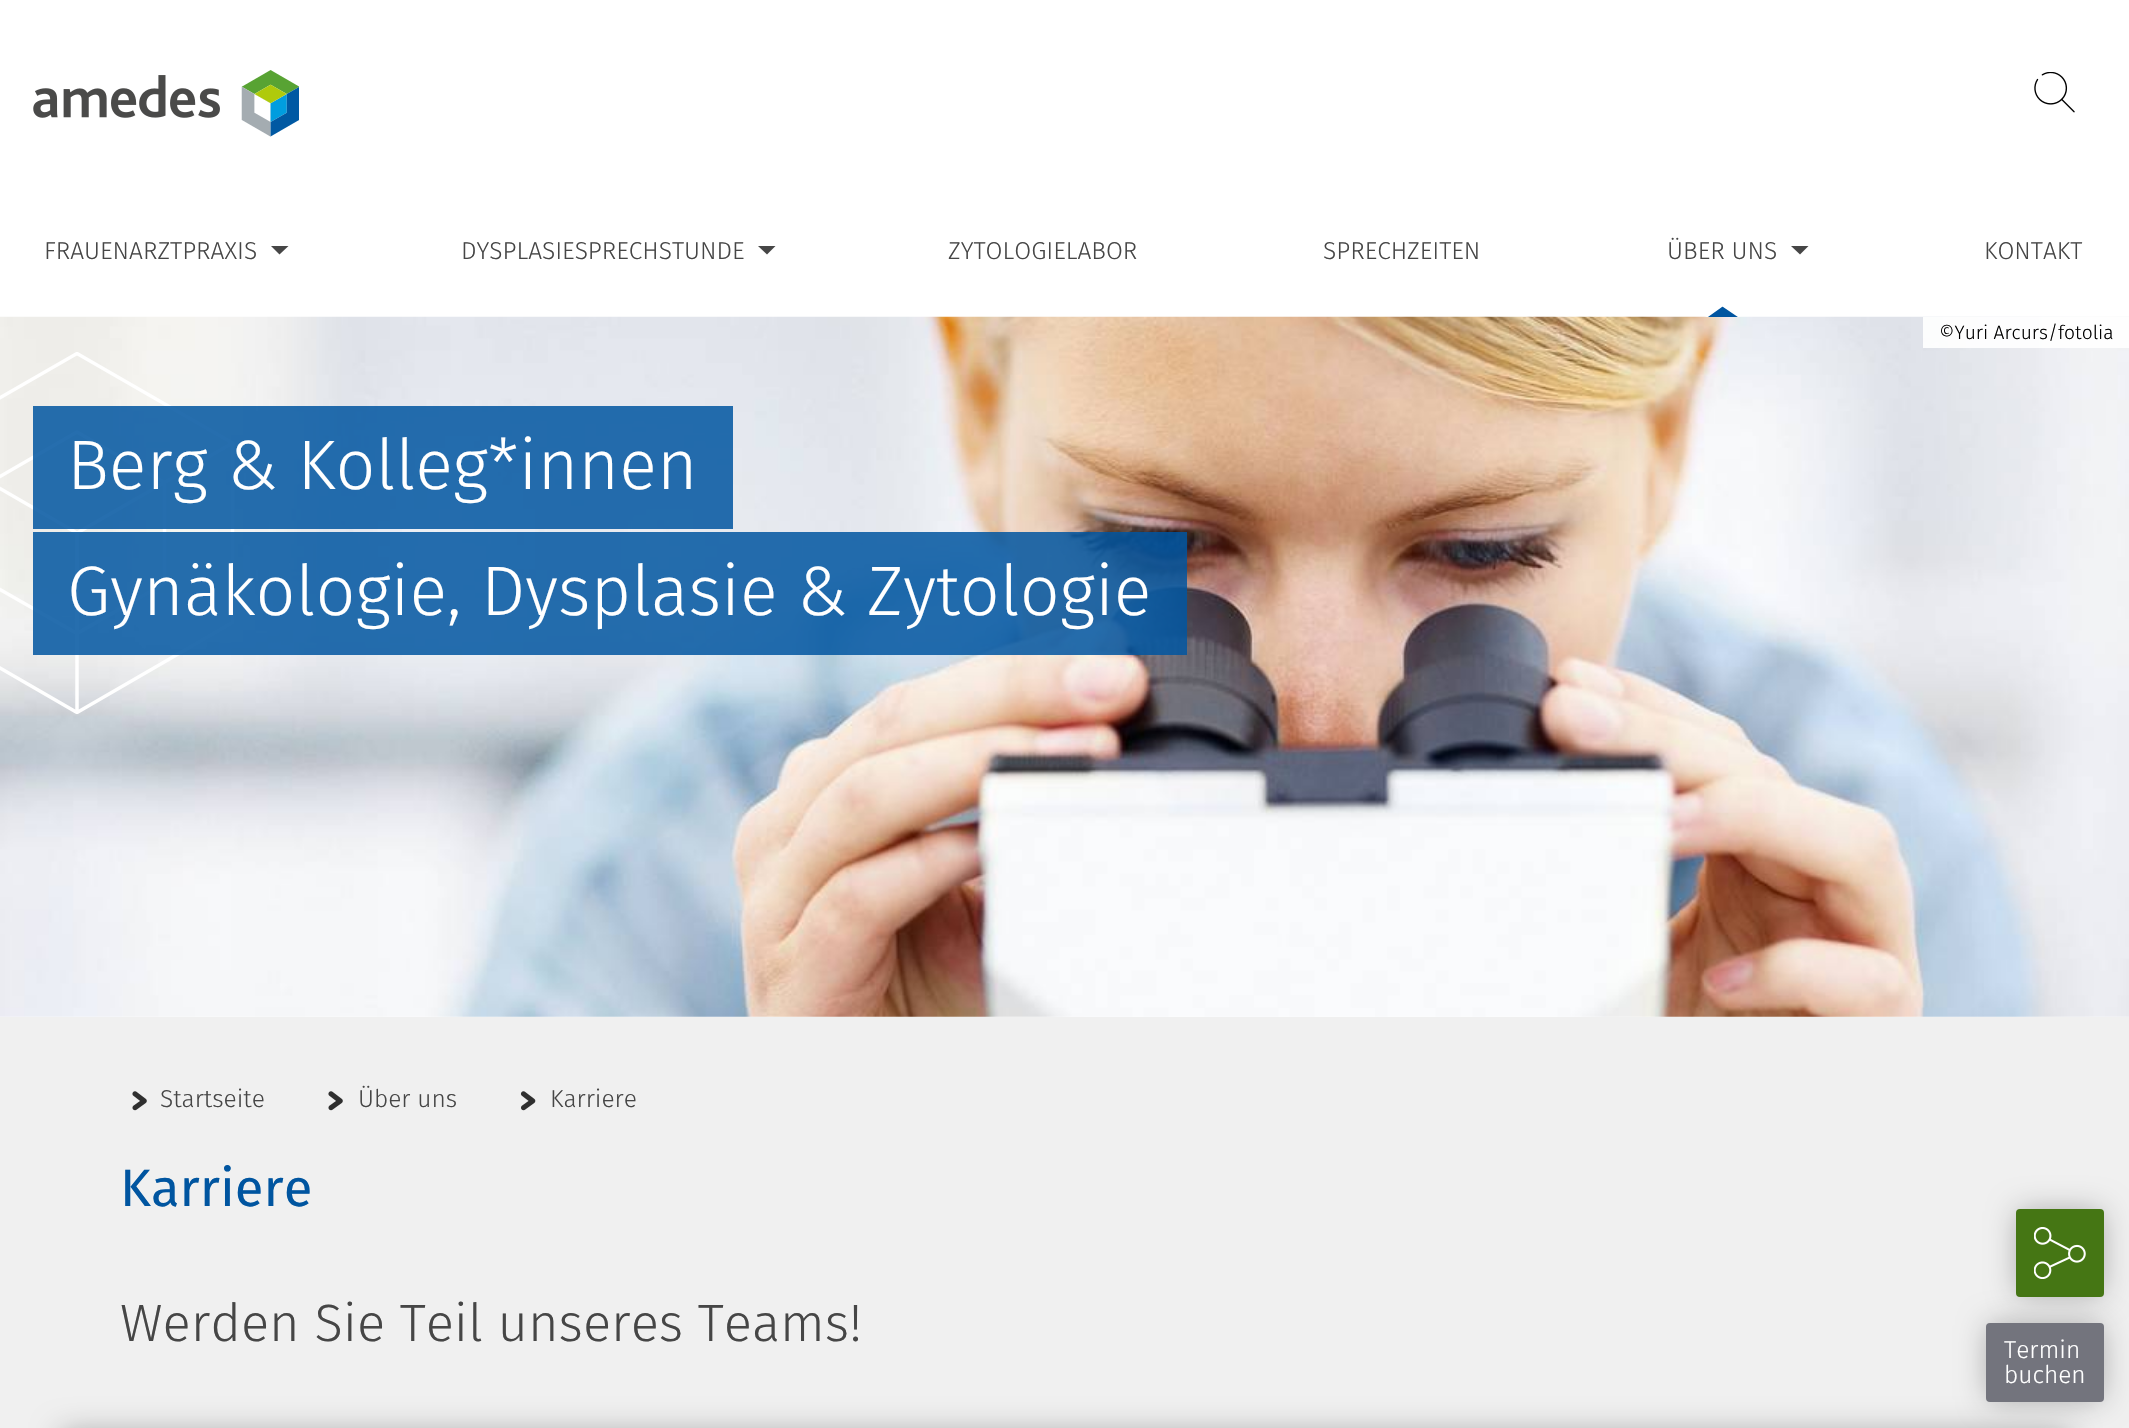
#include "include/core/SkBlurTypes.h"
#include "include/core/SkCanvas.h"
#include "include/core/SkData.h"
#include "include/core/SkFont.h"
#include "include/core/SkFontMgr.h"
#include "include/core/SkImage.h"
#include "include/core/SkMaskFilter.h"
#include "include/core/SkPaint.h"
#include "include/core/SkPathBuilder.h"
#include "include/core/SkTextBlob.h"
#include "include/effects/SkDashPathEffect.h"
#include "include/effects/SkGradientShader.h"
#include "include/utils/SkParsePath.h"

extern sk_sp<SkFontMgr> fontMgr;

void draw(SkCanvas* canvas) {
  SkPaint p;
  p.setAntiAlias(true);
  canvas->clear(SK_ColorWHITE);
  canvas->drawImageRect(SkImages::DeferredFromEncodedData(SkData::MakeFromFileName("images/1.png")), SkRect::MakeLTRB(33, 70, 299, 137), SkSamplingOptions());
  canvas->drawImageRect(SkImages::DeferredFromEncodedData(SkData::MakeFromFileName("images/2.png")), SkRect::MakeLTRB(2034, 72, 2075, 113), SkSamplingOptions());
  p.setColor(SkColorSetRGB(70, 70, 70));
  canvas->drawPath(SkPathBuilder().moveTo(271, 246).lineTo(288.5f, 246).lineTo(279.5f, 254.5f).close().detach(), p);
  canvas->drawPath(SkPathBuilder().moveTo(758, 246).lineTo(775.5f, 246).lineTo(767, 254.5f).close().detach(), p);
  canvas->drawImageRect(SkImages::DeferredFromEncodedData(SkData::MakeFromFileName("images/3.png")), SkRect::MakeLTRB(0, 316, 2129, 1017), SkSamplingOptions());
  canvas->save();
  canvas->clipRect(SkRect::MakeLTRB(1705, 305, 1741, 317));
  p.setColor(SkColorSetRGB(0, 85, 160));
  canvas->drawPath(SkPathBuilder().moveTo(1705, 318).lineTo(1722.5f, 305.5f).lineTo(1741, 318).close().detach(), p);
  p.setStyle(SkPaint::kStroke_Style);
  p.setStrokeWidth(1.8f);
  p.setColor(SK_ColorWHITE);
  canvas->drawPath(SkPathBuilder().moveTo(1705, 318).lineTo(1722.5f, 305.5f).lineTo(1741, 318).close().detach(), p);
  canvas->restore();
  p.setStyle(SkPaint::kFill_Style);
  p.setColor(SkColorSetRGB(70, 70, 70));
  canvas->drawPath(SkPathBuilder().moveTo(1791, 246).lineTo(1808.5f, 246).lineTo(1800, 254.5f).close().detach(), p);
  p.setColor(SkColorSetARGB(230, 255, 255, 255));
  canvas->drawRect(SkRect::MakeLTRB(1923, 317, 2129, 348), p);
  canvas->save();
  canvas->clipRect(SkRect::MakeLTRB(0, 352, 235, 714));
  p.setStyle(SkPaint::kStroke_Style);
  p.setStrokeWidth(3.5f);
  p.setStrokeCap(SkPaint::kRound_Cap);
  p.setStrokeJoin(SkPaint::kRound_Join);
  p.setColor(SK_ColorWHITE);
  canvas->drawPath(SkPathBuilder().moveTo(164.5f, 482.5f).lineTo(164.5f, 583.5f).lineTo(77, 633.5f).lineTo(77, 712.5f).lineTo(232.5f, 622.5f).lineTo(232.5f, 443).close().moveTo(164.5f, 482.5f).lineTo(77, 432).lineTo(-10.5f, 482.5f).lineTo(77, 533).close().moveTo(164.5f, 482.5f).lineTo(164.5f, 583.5f).lineTo(77, 633.5f).lineTo(77, 533).close().moveTo(-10.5f, 482.5f).lineTo(-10.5f, 583.5f).lineTo(77, 633.5f).lineTo(77, 533).close().moveTo(-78.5f, 443).lineTo(-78.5f, 622.5f).lineTo(77, 712.5f).lineTo(77, 533).close().moveTo(77, 353.5f).lineTo(-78.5f, 443).lineTo(-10.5f, 482.5f).lineTo(77, 432).lineTo(164.5f, 482.5f).lineTo(232.5f, 443).close().detach(), p);
  canvas->restore();
  p.setStyle(SkPaint::kFill_Style);
  p.setColor(SkColorSetARGB(217, 0, 85, 160));
  canvas->drawRect(SkRect::MakeLTRB(33, 406, 733, 529), p);
  canvas->drawRect(SkRect::MakeLTRB(33, 532, 1187, 655), p);
  p.setColor(SkColorSetRGB(240, 240, 240));
  canvas->drawRect(SkRect::MakeLTRB(0, 1017, 2129, 1428), p);
  canvas->drawImageRect(SkImages::DeferredFromEncodedData(SkData::MakeFromFileName("images/4.png")), SkRect::MakeLTRB(132, 1091, 147, 1111), SkSamplingOptions());
  canvas->drawImageRect(SkImages::DeferredFromEncodedData(SkData::MakeFromFileName("images/4.png")), SkRect::MakeLTRB(328, 1091, 343, 1111), SkSamplingOptions());
  canvas->drawImageRect(SkImages::DeferredFromEncodedData(SkData::MakeFromFileName("images/5.png")), SkRect::MakeLTRB(520, 1091, 536, 1111), SkSamplingOptions());
  p.setColor(SkColorSetARGB(77, 0, 0, 0));
  p.setMaskFilter(SkMaskFilter::MakeBlur(kNormal_SkBlurStyle, 15));
  canvas->drawRect(SkRect::MakeLTRB(61, 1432, 2070, 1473), p);
  p.setMaskFilter(nullptr);
  p.setMaskFilter(SkMaskFilter::MakeBlur(kNormal_SkBlurStyle, 15));
  canvas->drawRoundRect(SkRect::MakeLTRB(2018, 1211, 2102, 1295), 2, 2, p);
  p.setMaskFilter(nullptr);
  p.setColor(SkColorSetRGB(69, 118, 20));
  canvas->drawRoundRect(SkRect::MakeLTRB(2016, 1209, 2104, 1297), 4, 4, p);
  canvas->drawImageRect(SkImages::DeferredFromEncodedData(SkData::MakeFromFileName("images/6.png")), SkRect::MakeLTRB(2034, 1227, 2086, 1279), SkSamplingOptions());
  p.setColor(SkColorSetARGB(77, 0, 0, 0));
  p.setMaskFilter(SkMaskFilter::MakeBlur(kNormal_SkBlurStyle, 15));
  canvas->drawRoundRect(SkRect::MakeLTRB(1988, 1325, 2102, 1400), 2, 2, p);
  p.setMaskFilter(nullptr);
  p.setColor(SkColorSetRGB(115, 116, 125));
  canvas->drawRoundRect(SkRect::MakeLTRB(1986, 1323, 2104, 1402), 4, 4, p);
  SkFont font1(fontMgr->matchFamilyStyle("Fira Sans", SkFontStyle(300, SkFontStyle::kNormal_Width, SkFontStyle::kUpright_Slant)), 24.5f);
  font1.setSubpixel(true);
  p.setColor(SkColorSetRGB(70, 70, 70));
  canvas->drawString("FRAUENARZTPRAXIS", 44, 259, font1, p);
  canvas->drawString("DYSPLASIESPRECHSTUNDE", 461, 259, font1, p);
  canvas->drawString("ZYTOLOGIELABOR", 948, 259, font1, p);
  canvas->drawString("SPRECHZEITEN", 1323, 259, font1, p);
  canvas->drawString("ÜBER UNS", 1667, 259, font1, p);
  canvas->drawString("KONTAKT", 1984, 259, font1, p);
  SkFont font2(fontMgr->matchFamilyStyle("Fira Sans", SkFontStyle(300, SkFontStyle::kNormal_Width, SkFontStyle::kUpright_Slant)), 19.25f);
  font2.setSubpixel(true);
  p.setColor(SK_ColorBLACK);
  canvas->drawString("©Yuri Arcurs/fotolia", 1939, 339, font2, p);
  SkFont font3(fontMgr->matchFamilyStyle("Fira Sans", SkFontStyle(300, SkFontStyle::kNormal_Width, SkFontStyle::kUpright_Slant)), 70);
  font3.setSubpixel(true);
  p.setColor(SK_ColorWHITE);
  canvas->drawString("Berg & Kolleg*innen", 67, 489, font3, p);
  canvas->drawString("Gynäkologie, Dysplasie & Zytologie", 67, 615, font3, p);
  p.setColor(SkColorSetRGB(70, 70, 70));
  canvas->drawString("Startseite", 160, 1107, font1, p);
  canvas->drawString("Über uns", 358, 1107, font1, p);
  canvas->drawString("Karriere", 550, 1107, font1, p);
  SkFont font4(fontMgr->matchFamilyStyle("Fira Sans", SkFontStyle::Normal()), 52.5f);
  font4.setSubpixel(true);
  p.setColor(SkColorSetRGB(0, 85, 160));
  canvas->drawString("Karriere", 120, 1206, font4, p);
  SkFont font5(fontMgr->matchFamilyStyle("Fira Sans", SkFontStyle(300, SkFontStyle::kNormal_Width, SkFontStyle::kUpright_Slant)), 52.5f);
  font5.setSubpixel(true);
  p.setColor(SkColorSetRGB(70, 70, 70));
  canvas->drawString("Werden Sie Teil unseres Teams!", 120, 1341, font5, p);
  p.setColor(SK_ColorWHITE);
  canvas->drawString("Termin", 2004, 1358, font1, p);
  canvas->drawString("buchen", 2004, 1383, font1, p);
}
